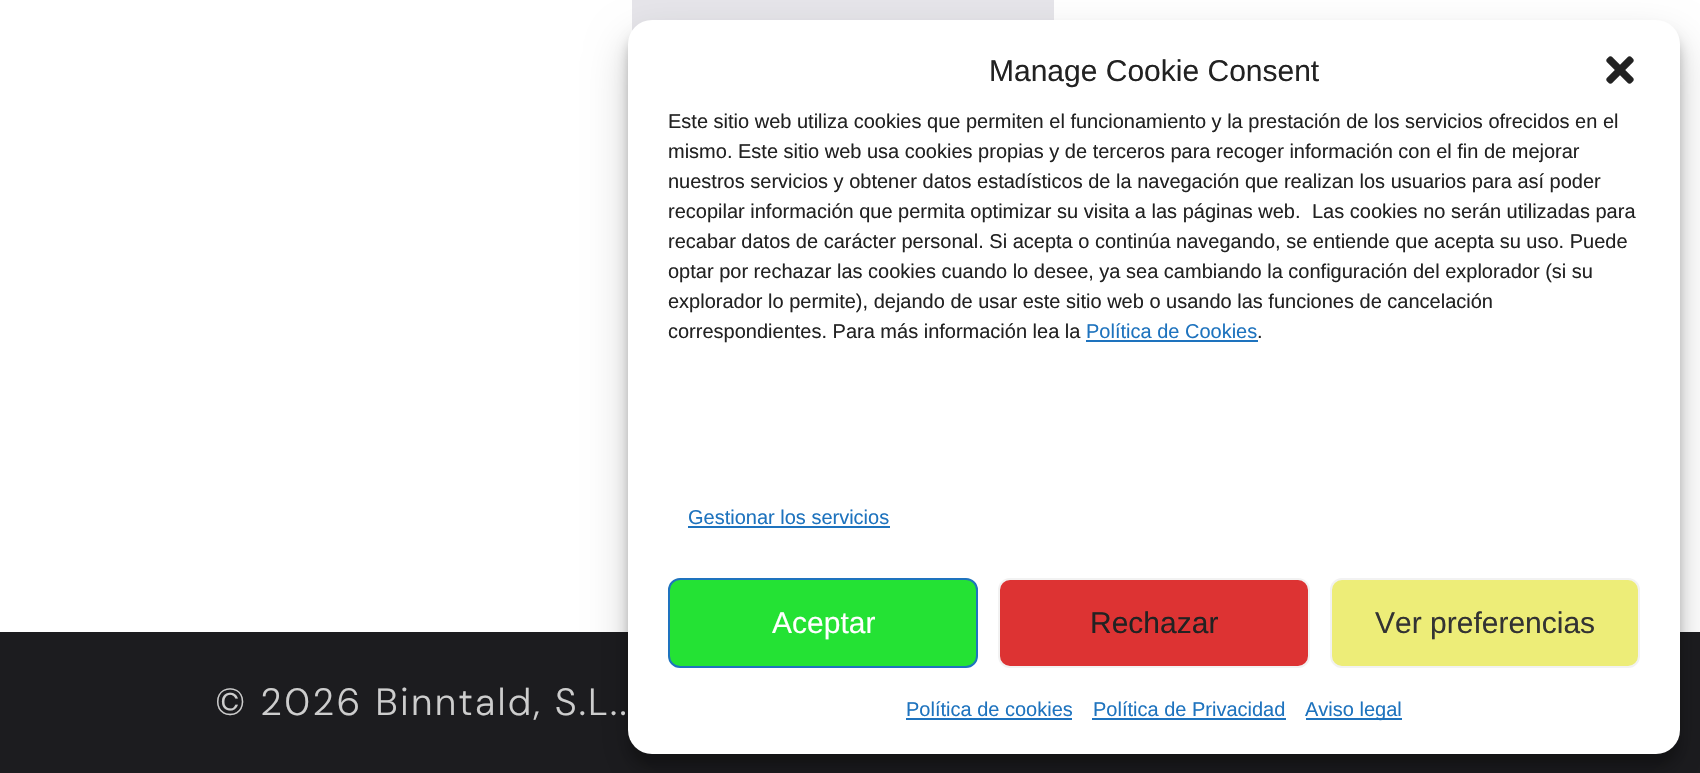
#include "include/core/SkBlurTypes.h"
#include "include/core/SkCanvas.h"
#include "include/core/SkData.h"
#include "include/core/SkFont.h"
#include "include/core/SkFontMgr.h"
#include "include/core/SkImage.h"
#include "include/core/SkMaskFilter.h"
#include "include/core/SkPaint.h"
#include "include/core/SkPathBuilder.h"
#include "include/core/SkTextBlob.h"
#include "include/effects/SkDashPathEffect.h"
#include "include/effects/SkGradientShader.h"
#include "include/utils/SkParsePath.h"

extern sk_sp<SkFontMgr> fontMgr;

void draw(SkCanvas* canvas) {
  SkPaint p;
  p.setAntiAlias(true);
  auto spacedText = [&](const char* s, float x, float y, const SkFont& font, const SkPaint& ink, float letter, float word) {
    std::vector<SkGlyphID> glyphs(font.countText(s, strlen(s), SkTextEncoding::kUTF8));
    std::vector<float> xs(glyphs.size());
    font.textToGlyphs(s, strlen(s), SkTextEncoding::kUTF8, glyphs);
    font.getXPos(glyphs, xs, x);
    float extra = 0;
    for (size_t i = 0; i < glyphs.size(); i++) {
      xs[i] += extra;
      extra += letter + word * (glyphs[i] == font.unicharToGlyph(' '));
    }
    canvas->drawTextBlob(SkTextBlob::MakeFromPosHGlyphs(glyphs, xs, y, font), 0, 0, ink);
  };
  canvas->clear(SK_ColorWHITE);
  p.setColor(SkColorSetRGB(230, 229, 234));
  canvas->drawRect(SkRect::MakeLTRB(632, 0, 1054, 31), p);
  p.setColor(SkColorSetRGB(28, 28, 31));
  canvas->drawRect(SkRect::MakeLTRB(0, 632, 1700, 773), p);
  p.setColor(SkColorSetARGB(59, 0, 0, 0));
  p.setMaskFilter(SkMaskFilter::MakeBlur(kNormal_SkBlurStyle, 6));
  canvas->drawRoundRect(SkRect::MakeLTRB(628, 32, 1680, 766), 24, 24, p);
  p.setMaskFilter(nullptr);
  p.setColor(SkColorSetARGB(48, 0, 0, 0));
  p.setMaskFilter(SkMaskFilter::MakeBlur(kNormal_SkBlurStyle, 20));
  canvas->drawRoundRect(SkRect::MakeLTRB(628, 40, 1680, 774), 24, 24, p);
  p.setMaskFilter(nullptr);
  p.setColor(SK_ColorWHITE);
  canvas->drawRoundRect(SkRect::MakeLTRB(628, 20, 1680, 754), 24, 24, p);
  canvas->drawImageRect(SkImages::DeferredFromEncodedData(SkData::MakeFromFileName("images/1.png")), SkRect::MakeLTRB(1606, 56, 1634, 84), SkSamplingOptions());
  p.setColor(SkColorSetRGB(30, 115, 190));
  canvas->drawRect(SkRect::MakeLTRB(1086, 340, 1258, 342), p);
  canvas->drawRect(SkRect::MakeLTRB(688, 526, 890, 528), p);
  p.setColor(SkColorSetRGB(36, 226, 52));
  canvas->drawRoundRect(SkRect::MakeLTRB(669, 579, 977, 667), 11, 11, p);
  p.setStyle(SkPaint::kStroke_Style);
  p.setStrokeWidth(2);
  p.setColor(SkColorSetRGB(30, 115, 190));
  canvas->drawRoundRect(SkRect::MakeLTRB(669, 579, 977, 667), 11, 11, p);
  p.setStyle(SkPaint::kFill_Style);
  p.setColor(SkColorSetRGB(221, 51, 51));
  canvas->drawRoundRect(SkRect::MakeLTRB(999, 579, 1309, 667), 11, 11, p);
  p.setStyle(SkPaint::kStroke_Style);
  p.setColor(SkColorSetRGB(242, 242, 242));
  canvas->drawRoundRect(SkRect::MakeLTRB(999, 579, 1309, 667), 11, 11, p);
  p.setStyle(SkPaint::kFill_Style);
  p.setColor(SkColorSetRGB(237, 237, 120));
  canvas->drawRoundRect(SkRect::MakeLTRB(1331, 579, 1639, 667), 11, 11, p);
  p.setStyle(SkPaint::kStroke_Style);
  p.setColor(SkColorSetRGB(242, 242, 242));
  canvas->drawRoundRect(SkRect::MakeLTRB(1331, 579, 1639, 667), 11, 11, p);
  p.setStyle(SkPaint::kFill_Style);
  p.setColor(SkColorSetRGB(30, 115, 190));
  canvas->drawRect(SkRect::MakeLTRB(906, 718, 1072, 720), p);
  canvas->drawRect(SkRect::MakeLTRB(1092, 718, 1286, 720), p);
  canvas->drawRect(SkRect::MakeLTRB(1306, 718, 1402, 720), p);
  SkFont font1(fontMgr->matchFamilyStyle("DM Sans", SkFontStyle(300, SkFontStyle::kNormal_Width, SkFontStyle::kUpright_Slant)), 38);
  font1.setSubpixel(true);
  p.setColor(SkColorSetRGB(205, 205, 205));
  spacedText("© 2026 Binntald, S.L..", 215, 715, font1, p, 2.2f, 0);
  SkFont font2(fontMgr->matchFamilyStyle("Liberation Sans", SkFontStyle::Normal()), 30);
  font2.setSubpixel(true);
  p.setColor(SkColorSetRGB(34, 34, 34));
  canvas->drawString("Manage Cookie Consent", 989, 81, font2, p);
  SkFont font3(fontMgr->matchFamilyStyle("Liberation Sans", SkFontStyle::Normal()), 20);
  font3.setSubpixel(true);
  canvas->drawString("Este sitio web utiliza cookies que permiten el funcionamiento y la prestación de los servicios ofrecidos en el", 668, 128, font3, p);
  canvas->drawString("mismo. Este sitio web usa cookies propias y de terceros para recoger información con el fin de mejorar", 668, 158, font3, p);
  canvas->drawString("nuestros servicios y obtener datos estadísticos de la navegación que realizan los usuarios para así poder", 668, 188, font3, p);
  canvas->drawString("recopilar información que permita optimizar su visita a las páginas web.", 668, 218, font3, p);
  canvas->drawString("Las cookies no serán utilizadas para", 1312, 218, font3, p);
  canvas->drawString("recabar datos de carácter personal. Si acepta o continúa navegando, se entiende que acepta su uso. Puede", 668, 248, font3, p);
  canvas->drawString("optar por rechazar las cookies cuando lo desee, ya sea cambiando la configuración del explorador (si su", 668, 278, font3, p);
  canvas->drawString("explorador lo permite), dejando de usar este sitio web o usando las funciones de cancelación", 668, 308, font3, p);
  canvas->drawString("correspondientes. Para más información lea la", 668, 338, font3, p);
  p.setColor(SkColorSetRGB(30, 115, 190));
  canvas->drawString("Política de Cookies", 1086, 338, font3, p);
  p.setColor(SkColorSetRGB(34, 34, 34));
  canvas->drawString(".", 1257, 338, font3, p);
  p.setColor(SkColorSetRGB(30, 115, 190));
  canvas->drawString("Gestionar los servicios", 688, 524, font3, p);
  p.setColor(SK_ColorWHITE);
  canvas->drawString("Aceptar", 772, 633, font2, p);
  p.setColor(SkColorSetRGB(34, 34, 34));
  canvas->drawString("Rechazar", 1090, 633, font2, p);
  p.setColor(SkColorSetRGB(51, 51, 51));
  canvas->drawString("Ver preferencias", 1375, 633, font2, p);
  p.setColor(SkColorSetRGB(30, 115, 190));
  canvas->drawString("Política de cookies", 906, 716, font3, p);
  canvas->drawString("Política de Privacidad", 1093, 716, font3, p);
  canvas->drawString("Aviso legal", 1305, 716, font3, p);
}
